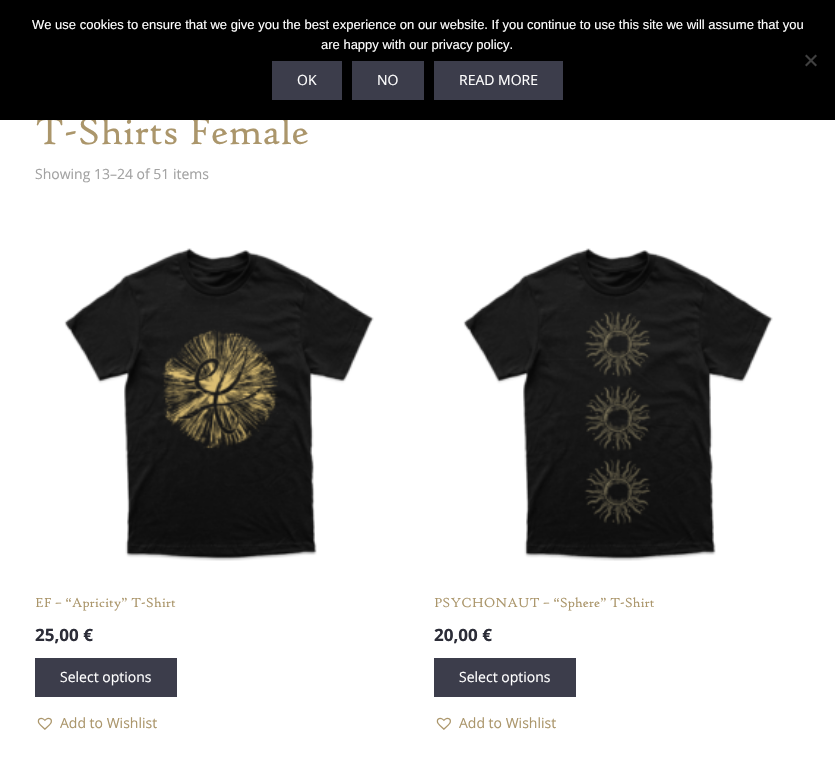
#include "include/core/SkBlurTypes.h"
#include "include/core/SkCanvas.h"
#include "include/core/SkData.h"
#include "include/core/SkFont.h"
#include "include/core/SkFontMgr.h"
#include "include/core/SkImage.h"
#include "include/core/SkMaskFilter.h"
#include "include/core/SkPaint.h"
#include "include/core/SkPathBuilder.h"
#include "include/core/SkTextBlob.h"
#include "include/effects/SkDashPathEffect.h"
#include "include/effects/SkGradientShader.h"
#include "include/utils/SkParsePath.h"

extern sk_sp<SkFontMgr> fontMgr;

void draw(SkCanvas* canvas) {
  SkPaint p;
  p.setAntiAlias(true);
  canvas->clear(SK_ColorWHITE);
  canvas->drawImageRect(SkImages::DeferredFromEncodedData(SkData::MakeFromFileName("images/1.png")), SkRect::MakeLTRB(64, 248, 374, 561), SkSamplingOptions());
  p.setColor(SkColorSetRGB(60, 61, 75));
  canvas->drawRect(SkRect::MakeLTRB(35, 658, 177, 697), p);
  canvas->drawImageRect(SkImages::DeferredFromEncodedData(SkData::MakeFromFileName("images/2.png")), SkRect::MakeLTRB(37, 717, 52, 730), SkSamplingOptions());
  canvas->drawImageRect(SkImages::DeferredFromEncodedData(SkData::MakeFromFileName("images/3.png")), SkRect::MakeLTRB(463, 248, 773, 561), SkSamplingOptions());
  canvas->drawRect(SkRect::MakeLTRB(434, 658, 576, 697), p);
  canvas->drawImageRect(SkImages::DeferredFromEncodedData(SkData::MakeFromFileName("images/2.png")), SkRect::MakeLTRB(436, 717, 451, 730), SkSamplingOptions());
  SkFont font1(fontMgr->matchFamilyStyle("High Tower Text", SkFontStyle::Normal()), 40);
  font1.setSubpixel(true);
  p.setColor(SkColorSetRGB(171, 150, 107));
  canvas->drawString("T-Shirts Female", 35, 144, font1, p);
  p.setColor(SK_ColorBLACK);
  canvas->drawRect(SkRect::MakeLTRB(0, 0, 835, 120), p);
  p.setColor(SkColorSetRGB(64, 64, 64));
  canvas->drawPath(SkPathBuilder().moveTo(815.5f, 54.5f).lineTo(817, 56).lineTo(806.5f, 66.5f).lineTo(805, 65).close().detach(), p);
  canvas->drawPath(SkPathBuilder().moveTo(805, 56).lineTo(806.5f, 54.5f).lineTo(817, 65).lineTo(815.5f, 66.5f).close().detach(), p);
  p.setColor(SkColorSetRGB(60, 61, 75));
  canvas->drawRect(SkRect::MakeLTRB(434, 61, 563, 100), p);
  SkFont font2(fontMgr->matchFamilyStyle("Open Sans", SkFontStyle::Normal()), 14);
  font2.setSubpixel(true);
  p.setColor(SK_ColorWHITE);
  canvas->drawString("READ MORE", 459, 85, font2, p);
  p.setColor(SkColorSetRGB(60, 61, 75));
  canvas->drawRect(SkRect::MakeLTRB(352, 61, 424, 100), p);
  p.setColor(SK_ColorWHITE);
  canvas->drawString("NO", 377, 85, font2, p);
  p.setColor(SkColorSetRGB(60, 61, 75));
  canvas->drawRect(SkRect::MakeLTRB(272, 61, 342, 100), p);
  p.setColor(SK_ColorWHITE);
  canvas->drawString("OK", 297, 85, font2, p);
  SkFont font3(fontMgr->matchFamilyStyle("Liberation Sans", SkFontStyle::Normal()), 13);
  font3.setSubpixel(true);
  canvas->drawString("are happy with our privacy policy.", 321, 49, font3, p);
  canvas->drawString("We use cookies to ensure that we give you the best experience on our website. If you continue to use this site we will assume that you", 32, 29, font3, p);
  p.setColor(SkColorSetRGB(162, 162, 162));
  canvas->drawString("Showing 13–24 of 51 items", 35, 179, font2, p);
  SkFont font4(fontMgr->matchFamilyStyle("High Tower Text", SkFontStyle::Normal()), 14);
  font4.setSubpixel(true);
  p.setColor(SkColorSetRGB(171, 150, 107));
  canvas->drawString("EF – “Apricity” T-Shirt", 35, 607, font4, p);
  SkFont font5(fontMgr->matchFamilyStyle("Open Sans", SkFontStyle::Bold()), 17);
  font5.setSubpixel(true);
  p.setColor(SkColorSetRGB(44, 45, 56));
  canvas->drawString("25,00 €", 35, 641, font5, p);
  p.setColor(SK_ColorWHITE);
  canvas->drawString("Select options", 60, 682, font2, p);
  p.setColor(SkColorSetRGB(171, 150, 107));
  canvas->drawString("Add to Wishlist", 60, 728, font2, p);
  canvas->drawString("PSYCHONAUT – “Sphere” T-Shirt", 434, 607, font4, p);
  p.setColor(SkColorSetRGB(44, 45, 56));
  canvas->drawString("20,00 €", 434, 641, font5, p);
  p.setColor(SK_ColorWHITE);
  canvas->drawString("Select options", 459, 682, font2, p);
  p.setColor(SkColorSetRGB(171, 150, 107));
  canvas->drawString("Add to Wishlist", 459, 728, font2, p);
}
